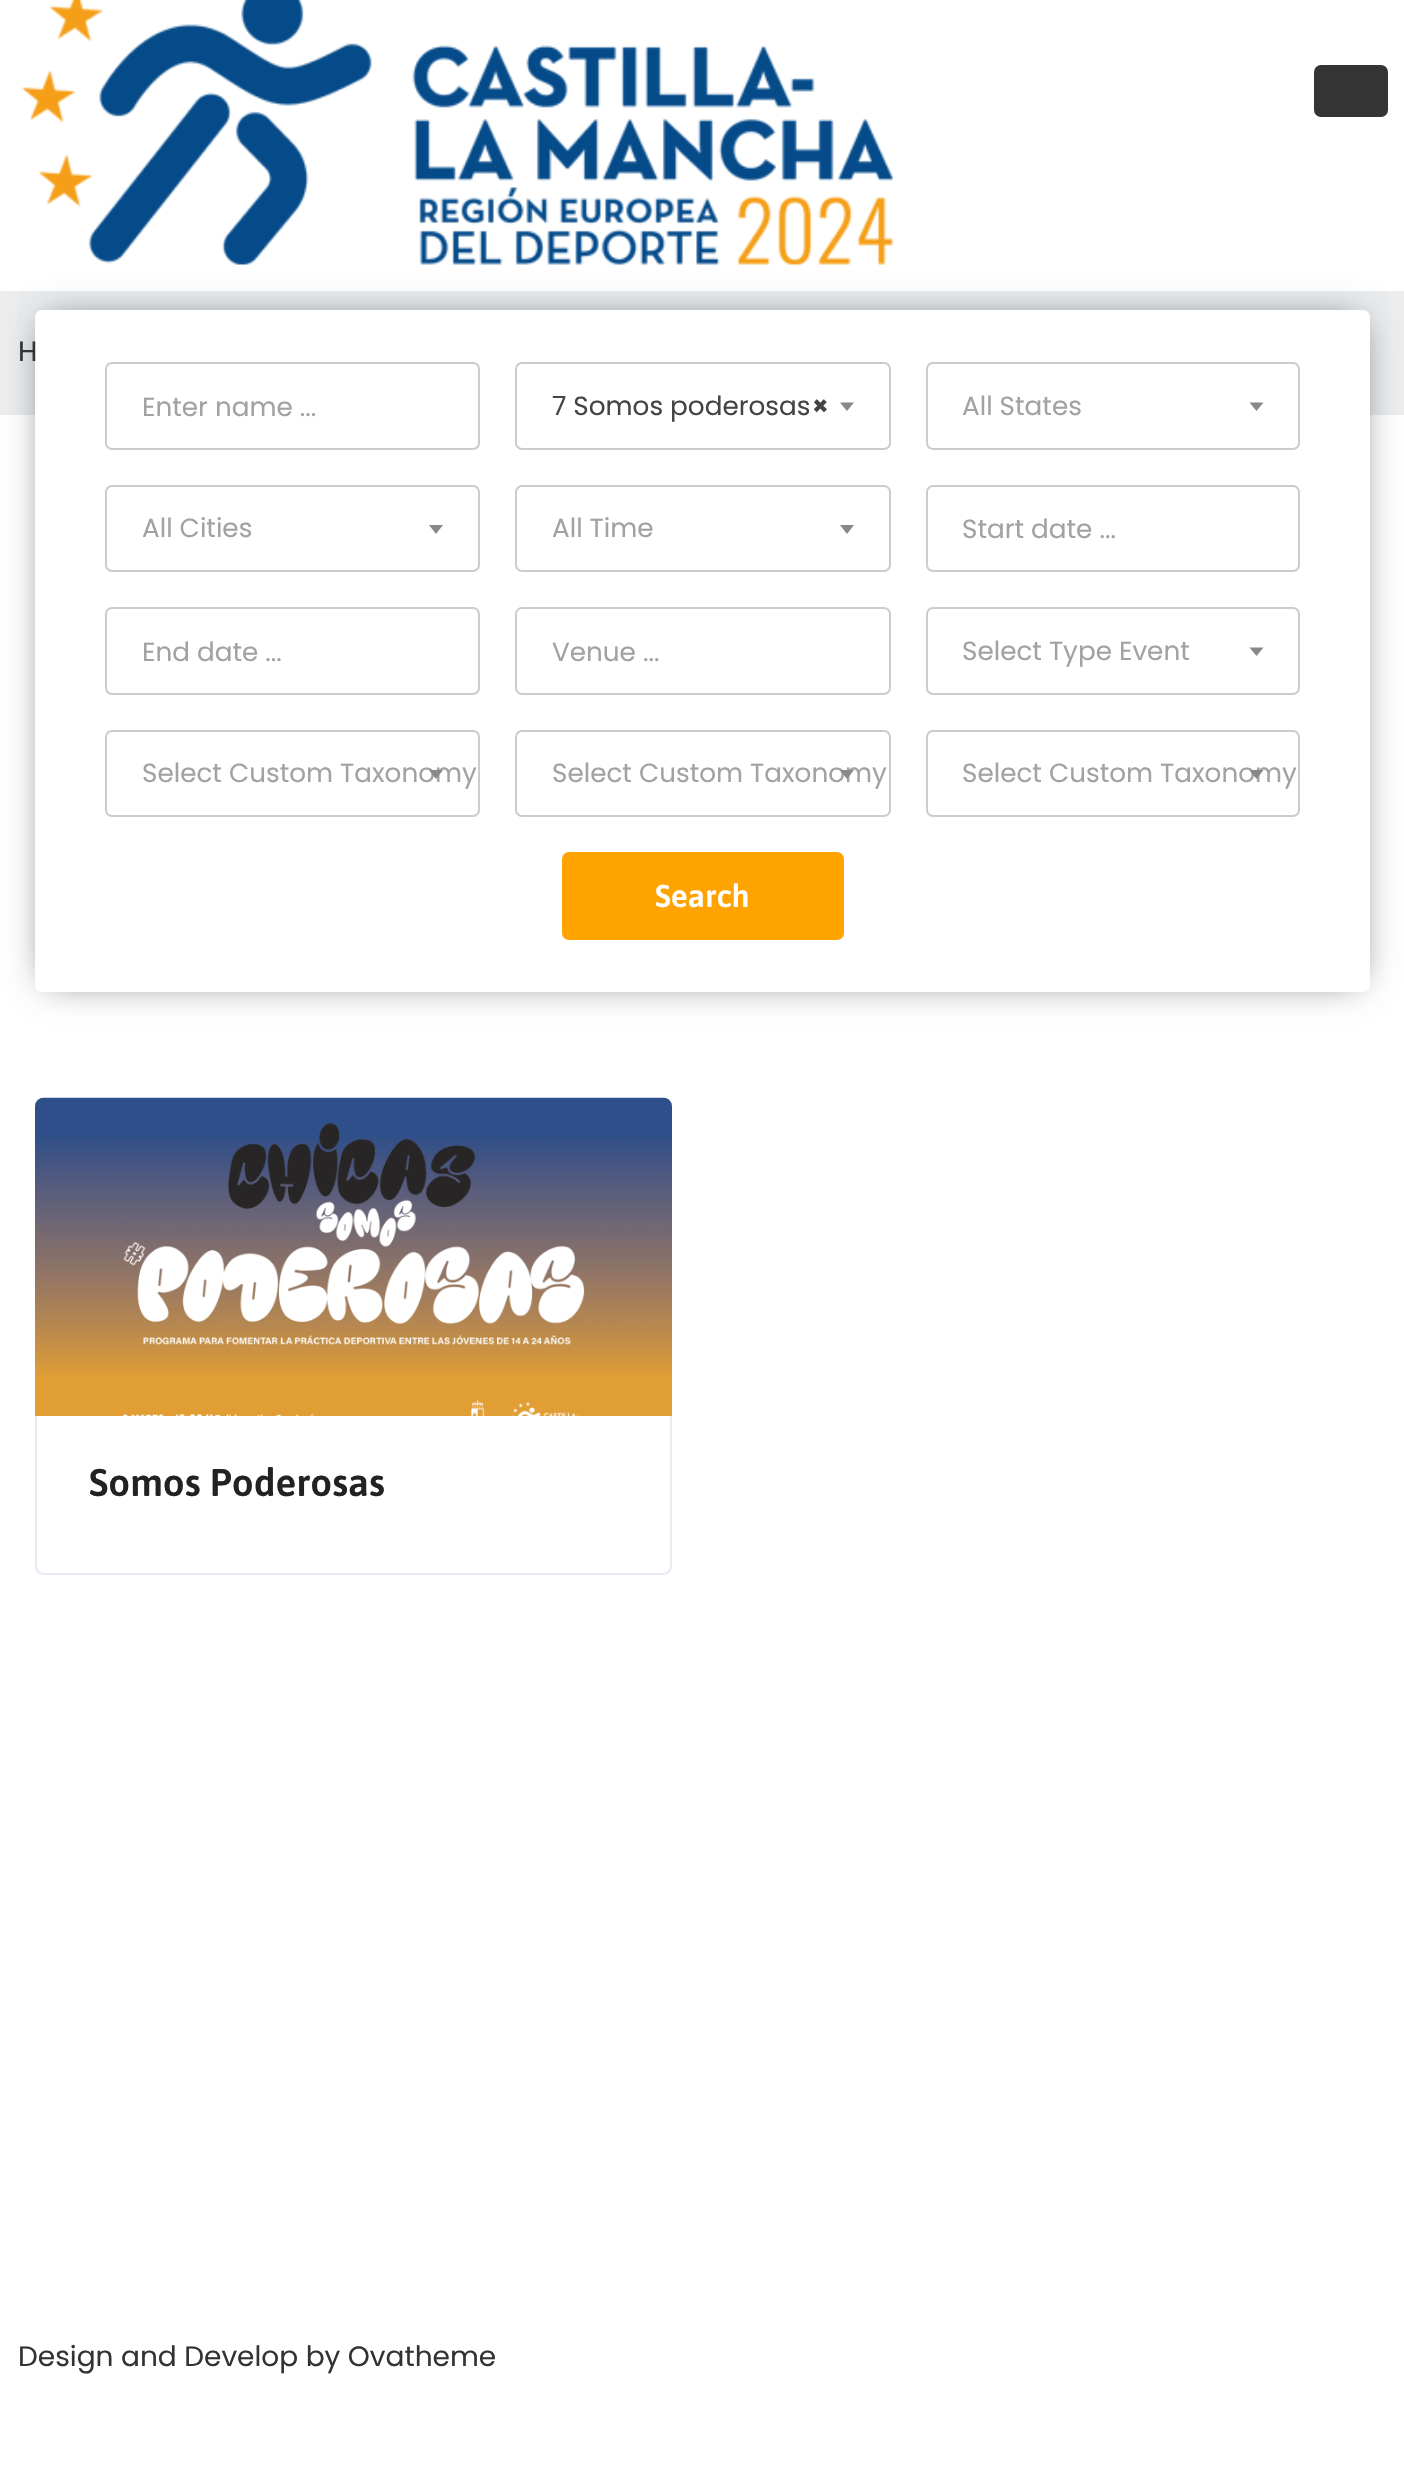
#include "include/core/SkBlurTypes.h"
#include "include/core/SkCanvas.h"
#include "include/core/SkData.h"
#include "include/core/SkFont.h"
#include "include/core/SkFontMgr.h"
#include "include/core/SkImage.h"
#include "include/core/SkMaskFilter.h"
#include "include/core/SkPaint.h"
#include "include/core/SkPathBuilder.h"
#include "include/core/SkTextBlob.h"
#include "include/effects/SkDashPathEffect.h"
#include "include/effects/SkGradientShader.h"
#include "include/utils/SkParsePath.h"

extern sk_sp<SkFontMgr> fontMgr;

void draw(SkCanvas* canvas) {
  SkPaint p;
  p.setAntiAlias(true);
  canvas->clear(SK_ColorWHITE);
  canvas->drawImageRect(SkImages::DeferredFromEncodedData(SkData::MakeFromFileName("images/1.png")), SkRect::MakeLTRB(21, 0, 893, 265), SkSamplingOptions());
  p.setColor(SkColorSetRGB(52, 52, 52));
  canvas->drawRoundRect(SkRect::MakeLTRB(1314, 65, 1388, 117), 7, 7, p);
  p.setColor(SkColorSetRGB(237, 237, 237));
  canvas->drawRect(SkRect::MakeLTRB(0, 291, 1404, 415), p);
  p.setColor(SkColorSetRGB(233, 236, 239));
  canvas->drawRoundRect(SkRect::MakeLTRB(18, 291, 1388, 415), 7, 7, p);
  p.setColor(SkColorSetARGB(153, 0, 0, 0));
  p.setMaskFilter(SkMaskFilter::MakeBlur(kNormal_SkBlurStyle, 17.5f));
  canvas->drawRect(SkRect::MakeLTRB(47, 322, 1358, 980), p);
  p.setMaskFilter(nullptr);
  p.setColor(SK_ColorWHITE);
  canvas->drawRoundRect(SkRect::MakeLTRB(35, 310, 1370, 992), 7, 7, p);
  p.setStyle(SkPaint::kStroke_Style);
  p.setStrokeWidth(2);
  p.setColor(SkColorSetRGB(204, 204, 204));
  canvas->drawRoundRect(SkRect::MakeLTRB(106, 363, 479, 449), 6, 6, p);
  canvas->drawRoundRect(SkRect::MakeLTRB(516, 363, 890, 449), 6, 6, p);
  p.setStyle(SkPaint::kFill_Style);
  p.setColor(SkColorSetRGB(136, 136, 136));
  canvas->drawPath(SkPathBuilder().moveTo(840, 402.5f).lineTo(854, 402.5f).lineTo(847, 411).close().detach(), p);
  p.setStyle(SkPaint::kStroke_Style);
  p.setColor(SkColorSetRGB(204, 204, 204));
  canvas->drawRoundRect(SkRect::MakeLTRB(927, 363, 1299, 449), 6, 6, p);
  p.setStyle(SkPaint::kFill_Style);
  p.setColor(SkColorSetRGB(136, 136, 136));
  canvas->drawPath(SkPathBuilder().moveTo(1249.5f, 402.5f).lineTo(1263.5f, 402.5f).lineTo(1256.5f, 411).close().detach(), p);
  p.setStyle(SkPaint::kStroke_Style);
  p.setColor(SkColorSetRGB(204, 204, 204));
  canvas->drawRoundRect(SkRect::MakeLTRB(106, 486, 479, 571), 6, 6, p);
  p.setStyle(SkPaint::kFill_Style);
  p.setColor(SkColorSetRGB(136, 136, 136));
  canvas->drawPath(SkPathBuilder().moveTo(429, 525).lineTo(443, 525).lineTo(436, 534).close().detach(), p);
  p.setStyle(SkPaint::kStroke_Style);
  p.setColor(SkColorSetRGB(204, 204, 204));
  canvas->drawRoundRect(SkRect::MakeLTRB(516, 486, 890, 571), 6, 6, p);
  p.setStyle(SkPaint::kFill_Style);
  p.setColor(SkColorSetRGB(136, 136, 136));
  canvas->drawPath(SkPathBuilder().moveTo(840, 525).lineTo(854, 525).lineTo(847, 534).close().detach(), p);
  p.setStyle(SkPaint::kStroke_Style);
  p.setColor(SkColorSetRGB(204, 204, 204));
  canvas->drawRoundRect(SkRect::MakeLTRB(927, 486, 1299, 571), 6, 6, p);
  canvas->drawRoundRect(SkRect::MakeLTRB(106, 608, 479, 694), 6, 6, p);
  canvas->drawRoundRect(SkRect::MakeLTRB(516, 608, 890, 694), 6, 6, p);
  canvas->drawRoundRect(SkRect::MakeLTRB(927, 608, 1299, 694), 6, 6, p);
  p.setStyle(SkPaint::kFill_Style);
  p.setColor(SkColorSetRGB(136, 136, 136));
  canvas->drawPath(SkPathBuilder().moveTo(1249.5f, 647.5f).lineTo(1263.5f, 647.5f).lineTo(1256.5f, 656).close().detach(), p);
  p.setStyle(SkPaint::kStroke_Style);
  p.setColor(SkColorSetRGB(204, 204, 204));
  canvas->drawRoundRect(SkRect::MakeLTRB(106, 731, 479, 816), 6, 6, p);
  canvas->drawRoundRect(SkRect::MakeLTRB(516, 731, 890, 816), 6, 6, p);
  canvas->drawRoundRect(SkRect::MakeLTRB(927, 731, 1299, 816), 6, 6, p);
  p.setStyle(SkPaint::kFill_Style);
  p.setColor(SkColorSetRGB(255, 163, 0));
  canvas->drawRoundRect(SkRect::MakeLTRB(563, 853, 843, 939), 6, 6, p);
  p.setStyle(SkPaint::kStroke_Style);
  canvas->drawRoundRect(SkRect::MakeLTRB(563, 853, 843, 939), 6, 6, p);
  canvas->drawImageRect(SkImages::DeferredFromEncodedData(SkData::MakeFromFileName("images/2.png")), SkRect::MakeLTRB(35, 1097, 672, 1416), SkSamplingOptions());
  p.setStyle(SkPaint::kFill_Style);
  p.setColor(SkColorSetRGB(234, 233, 243));
  canvas->drawPath(SkPathBuilder(SkPathFillType::kEvenOdd).moveTo(35, 1416).lineTo(672, 1416).lineTo(672, 1566).cubicTo(672, 1571, 668, 1575, 663, 1575).lineTo(44, 1575).cubicTo(39, 1575, 35, 1571, 35, 1566).close().moveTo(37, 1416).lineTo(670, 1416).lineTo(670, 1566).cubicTo(670, 1570, 667, 1573, 663, 1573).lineTo(44, 1573).cubicTo(40, 1573, 37, 1570, 37, 1566).close().detach(), p);
  SkFont font1(fontMgr->matchFamilyStyle("Poppins", SkFontStyle::Normal()), 28);
  font1.setSubpixel(true);
  p.setColor(SkColorSetRGB(51, 51, 51));
  canvas->drawString("H", 18, 361, font1, p);
  SkFont font2(fontMgr->matchFamilyStyle("Poppins", SkFontStyle::Normal()), 26.25f);
  font2.setSubpixel(true);
  p.setColor(SkColorSetRGB(162, 162, 162));
  canvas->drawString("Enter name ...", 142, 416, font2, p);
  p.setColor(SkColorSetRGB(68, 68, 68));
  canvas->drawString("7 Somos poderosas", 552, 415, font2, p);
  SkFont font3(fontMgr->matchFamilyStyle("Poppins", SkFontStyle::Bold()), 26.25f);
  font3.setSubpixel(true);
  canvas->drawString("×", 812, 415, font3, p);
  p.setColor(SkColorSetRGB(162, 162, 162));
  canvas->drawString("All States", 962, 415, font2, p);
  canvas->drawString("All Cities", 142, 537, font2, p);
  canvas->drawString("All Time", 552, 537, font2, p);
  canvas->drawString("Start date ...", 962, 538, font2, p);
  canvas->drawString("End date ...", 142, 661, font2, p);
  canvas->drawString("Venue ...", 552, 661, font2, p);
  canvas->drawString("Select Type Event", 962, 660, font2, p);
  canvas->drawString("Select Custom Taxonomy", 142, 782, font2, p);
  p.setColor(SkColorSetRGB(136, 136, 136));
  canvas->drawPath(SkPathBuilder().moveTo(429, 770).lineTo(443, 770).lineTo(436, 779).close().detach(), p);
  p.setColor(SkColorSetRGB(162, 162, 162));
  canvas->drawString("Select Custom Taxonomy", 552, 782, font2, p);
  p.setColor(SkColorSetRGB(136, 136, 136));
  canvas->drawPath(SkPathBuilder().moveTo(840, 770).lineTo(854, 770).lineTo(847, 779).close().detach(), p);
  p.setColor(SkColorSetRGB(162, 162, 162));
  canvas->drawString("Select Custom Taxonomy", 962, 782, font2, p);
  p.setColor(SkColorSetRGB(136, 136, 136));
  canvas->drawPath(SkPathBuilder().moveTo(1249.5f, 770).lineTo(1263.5f, 770).lineTo(1256.5f, 779).close().detach(), p);
  SkFont font4(fontMgr->matchFamilyStyle("Asap", SkFontStyle(600, SkFontStyle::kNormal_Width, SkFontStyle::kUpright_Slant)), 31.5f);
  font4.setSubpixel(true);
  p.setColor(SK_ColorWHITE);
  canvas->drawString("Search", 655, 907, font4, p);
  SkFont font5(fontMgr->matchFamilyStyle("Asap", SkFontStyle(600, SkFontStyle::kNormal_Width, SkFontStyle::kUpright_Slant)), 38.5f);
  font5.setSubpixel(true);
  p.setColor(SkColorSetRGB(34, 34, 34));
  canvas->drawString("Somos Poderosas", 89, 1496, font5, p);
  p.setColor(SkColorSetRGB(51, 51, 51));
  canvas->drawString("Design and Develop by Ovatheme", 18, 2366, font1, p);
}
